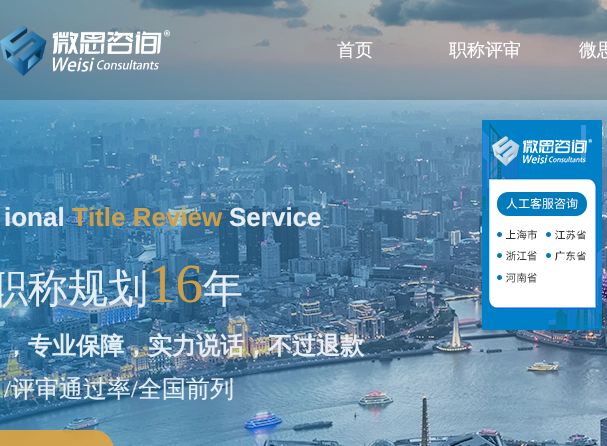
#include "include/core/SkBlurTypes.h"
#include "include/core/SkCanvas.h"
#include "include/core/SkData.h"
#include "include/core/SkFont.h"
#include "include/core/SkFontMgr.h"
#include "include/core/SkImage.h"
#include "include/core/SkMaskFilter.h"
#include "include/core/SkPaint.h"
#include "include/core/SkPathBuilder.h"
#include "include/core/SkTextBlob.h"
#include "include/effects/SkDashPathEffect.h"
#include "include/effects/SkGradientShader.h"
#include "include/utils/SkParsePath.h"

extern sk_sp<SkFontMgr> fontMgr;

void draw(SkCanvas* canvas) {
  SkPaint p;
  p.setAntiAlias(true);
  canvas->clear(SK_ColorWHITE);
  canvas->drawImageRect(SkImages::DeferredFromEncodedData(SkData::MakeFromFileName("images/1.png")), SkRect::MakeLTRB(0, 0, 607, 446), SkSamplingOptions());
  p.setColor(SkColorSetARGB(51, 0, 0, 0));
  canvas->drawRect(SkRect::MakeLTRB(0, 0, 607, 100), p);
  canvas->drawImageRect(SkImages::DeferredFromEncodedData(SkData::MakeFromFileName("images/2.png")), SkRect::MakeLTRB(0, 25, 170, 76), SkSamplingOptions());
  p.setColor(SkColorSetARGB(222, 226, 164, 60));
  canvas->drawPath(SkPathBuilder().moveTo(0, 430).lineTo(94, 430).cubicTo(105, 430, 114, 439, 114, 450).lineTo(114, 446).lineTo(0, 446).close().detach(), p);
  canvas->drawImageRect(SkImages::DeferredFromEncodedData(SkData::MakeFromFileName("images/3.png")), SkRect::MakeLTRB(482, 120, 602, 330), SkSamplingOptions());
  SkFont font1(fontMgr->matchFamilyStyle("WenQuanYi Zen Hei", SkFontStyle(500, SkFontStyle::kNormal_Width, SkFontStyle::kUpright_Slant)), 18);
  font1.setSubpixel(true);
  p.setColor(SK_ColorWHITE);
  canvas->drawString("首页", 337, 56, font1, p);
  canvas->drawString("职称评审", 449, 56, font1, p);
  canvas->drawString("微思", 579, 56, font1, p);
  SkFont font2(fontMgr->matchFamilyStyle("Liberation Sans", SkFontStyle::Bold()), 26);
  font2.setSubpixel(true);
  p.setColor(SkColorSetRGB(230, 238, 245));
  canvas->drawString("ional", 4, 226, font2, p);
  p.setColor(SkColorSetRGB(206, 159, 74));
  canvas->drawString("Title Review", 72, 226, font2, p);
  p.setColor(SkColorSetRGB(230, 238, 245));
  canvas->drawString("Service", 229, 226, font2, p);
  SkFont font3(fontMgr->matchFamilyStyle("WenQuanYi Zen Hei", SkFontStyle(500, SkFontStyle::kNormal_Width, SkFontStyle::kUpright_Slant)), 40);
  font3.setSubpixel(true);
  canvas->drawString("职称规划", -12, 302, font3, p);
  SkFont font4(fontMgr->matchFamilyStyle("Liberation Serif", SkFontStyle::Normal()), 55);
  font4.setSubpixel(true);
  p.setColor(SkColorSetRGB(206, 159, 74));
  canvas->drawString("16", 148, 302, font4, p);
  p.setColor(SkColorSetRGB(230, 238, 245));
  canvas->drawString("年", 203, 302, font3, p);
  SkFont font5(fontMgr->matchFamilyStyle("WenQuanYi Zen Hei", SkFontStyle::Bold()), 24);
  font5.setSubpixel(true);
  canvas->drawString("，专业保障，实力说话，不过退款", 4, 354, font5, p);
  SkFont font6(fontMgr->matchFamilyStyle("Liberation Serif", SkFontStyle::Normal()), 24);
  font6.setSubpixel(true);
  canvas->drawString("/", 4, 397, font6, p);
  SkFont font7(fontMgr->matchFamilyStyle("WenQuanYi Zen Hei", SkFontStyle(500, SkFontStyle::kNormal_Width, SkFontStyle::kUpright_Slant)), 24);
  font7.setSubpixel(true);
  canvas->drawString("评审通过率", 11, 397, font7, p);
  canvas->drawString("/", 131, 397, font6, p);
  canvas->drawString("全国前列", 138, 397, font7, p);
}
